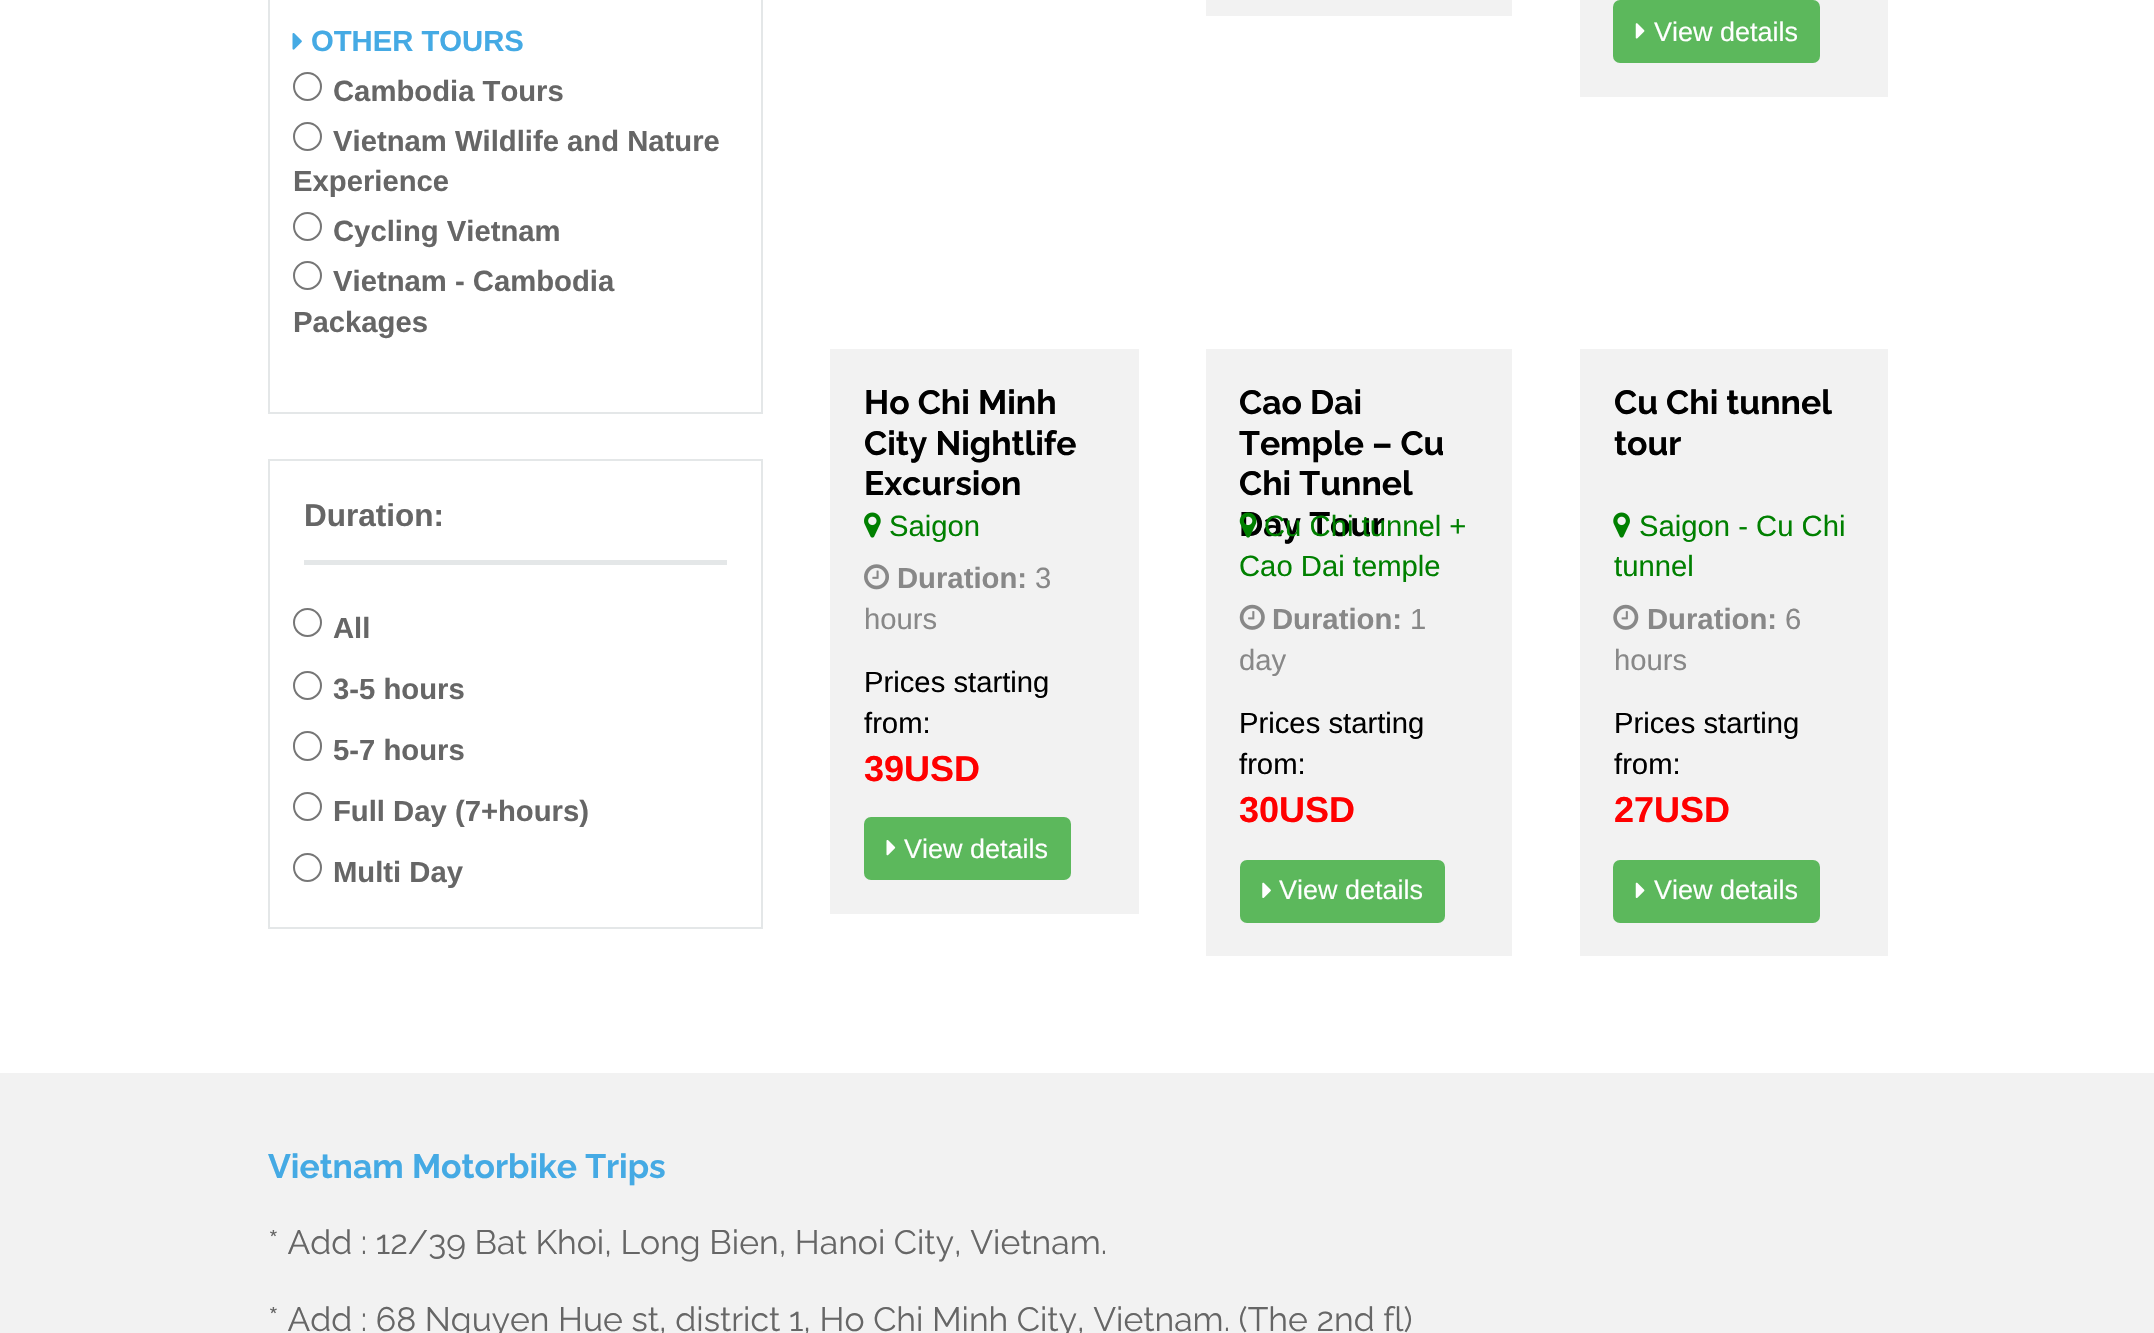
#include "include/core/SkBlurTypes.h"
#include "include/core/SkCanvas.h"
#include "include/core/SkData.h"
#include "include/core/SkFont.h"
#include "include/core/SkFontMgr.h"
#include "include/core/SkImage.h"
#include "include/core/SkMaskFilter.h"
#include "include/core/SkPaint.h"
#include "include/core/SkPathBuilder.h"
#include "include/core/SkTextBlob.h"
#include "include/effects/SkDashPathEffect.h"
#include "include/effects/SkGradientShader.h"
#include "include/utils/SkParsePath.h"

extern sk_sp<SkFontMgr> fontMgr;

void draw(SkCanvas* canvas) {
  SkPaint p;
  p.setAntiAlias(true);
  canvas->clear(SK_ColorWHITE);
  p.setStyle(SkPaint::kStroke_Style);
  p.setStrokeWidth(2);
  p.setColor(SkColorSetRGB(228, 231, 232));
  canvas->drawRect(SkRect::MakeLTRB(269, -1, 762, 413), p);
  canvas->drawImageRect(SkImages::DeferredFromEncodedData(SkData::MakeFromFileName("images/1.png")), SkRect::MakeLTRB(292, 33, 302, 50), SkSamplingOptions());
  p.setColor(SkColorSetRGB(118, 118, 118));
  canvas->drawCircle(307.5f, 86.5f, 13.5f, p);
  canvas->drawCircle(307.5f, 136.5f, 13.5f, p);
  canvas->drawCircle(307.5f, 226.5f, 13.5f, p);
  canvas->drawCircle(307.5f, 275.5f, 13.5f, p);
  p.setColor(SkColorSetRGB(228, 231, 232));
  canvas->drawRect(SkRect::MakeLTRB(269, 460, 762, 928), p);
  p.setStyle(SkPaint::kFill_Style);
  canvas->drawRect(SkRect::MakeLTRB(304, 560, 727, 565), p);
  p.setStyle(SkPaint::kStroke_Style);
  p.setColor(SkColorSetRGB(118, 118, 118));
  canvas->drawCircle(307.5f, 622.5f, 13.5f, p);
  canvas->drawCircle(307.5f, 685.5f, 13.5f, p);
  canvas->drawRoundRect(SkRect::MakeLTRB(294, 732, 321, 760), 13.5f, 13.5f, p);
  canvas->drawCircle(307.5f, 806.5f, 13.5f, p);
  canvas->drawCircle(307.5f, 867.5f, 13.5f, p);
  p.setStyle(SkPaint::kFill_Style);
  p.setColor(SkColorSetRGB(242, 242, 242));
  canvas->drawRect(SkRect::MakeLTRB(1206, 0, 1512, 16), p);
  canvas->drawRect(SkRect::MakeLTRB(1580, 0, 1888, 97), p);
  p.setColor(SkColorSetRGB(92, 184, 92));
  canvas->drawRoundRect(SkRect::MakeLTRB(1613, 0, 1820, 63), 7, 7, p);
  canvas->drawImageRect(SkImages::DeferredFromEncodedData(SkData::MakeFromFileName("images/2.png")), SkRect::MakeLTRB(1635, 23, 1645, 39), SkSamplingOptions());
  p.setColor(SkColorSetRGB(242, 242, 242));
  canvas->drawRect(SkRect::MakeLTRB(830, 349, 1139, 914), p);
  canvas->drawImageRect(SkImages::DeferredFromEncodedData(SkData::MakeFromFileName("images/3.png")), SkRect::MakeLTRB(864, 512, 881, 538), SkSamplingOptions());
  canvas->drawImageRect(SkImages::DeferredFromEncodedData(SkData::MakeFromFileName("images/4.png")), SkRect::MakeLTRB(864, 564, 889, 590), SkSamplingOptions());
  p.setColor(SkColorSetRGB(92, 184, 92));
  canvas->drawRoundRect(SkRect::MakeLTRB(864, 817, 1071, 880), 7, 7, p);
  canvas->drawImageRect(SkImages::DeferredFromEncodedData(SkData::MakeFromFileName("images/5.png")), SkRect::MakeLTRB(886, 840, 896, 856), SkSamplingOptions());
  p.setColor(SkColorSetRGB(242, 242, 242));
  canvas->drawRect(SkRect::MakeLTRB(1206, 349, 1512, 956), p);
  canvas->drawImageRect(SkImages::DeferredFromEncodedData(SkData::MakeFromFileName("images/7.png")), SkRect::MakeLTRB(1239, 604, 1265, 630), SkSamplingOptions());
  p.setColor(SkColorSetRGB(92, 184, 92));
  canvas->drawRoundRect(SkRect::MakeLTRB(1240, 860, 1445, 923), 7, 7, p);
  canvas->drawImageRect(SkImages::DeferredFromEncodedData(SkData::MakeFromFileName("images/8.png")), SkRect::MakeLTRB(1262, 882, 1271, 898), SkSamplingOptions());
  p.setColor(SkColorSetRGB(242, 242, 242));
  canvas->drawRect(SkRect::MakeLTRB(1580, 349, 1888, 956), p);
  canvas->drawImageRect(SkImages::DeferredFromEncodedData(SkData::MakeFromFileName("images/9.png")), SkRect::MakeLTRB(1613, 512, 1630, 538), SkSamplingOptions());
  canvas->drawImageRect(SkImages::DeferredFromEncodedData(SkData::MakeFromFileName("images/10.png")), SkRect::MakeLTRB(1613, 604, 1639, 630), SkSamplingOptions());
  p.setColor(SkColorSetRGB(92, 184, 92));
  canvas->drawRoundRect(SkRect::MakeLTRB(1613, 860, 1820, 923), 7, 7, p);
  canvas->drawImageRect(SkImages::DeferredFromEncodedData(SkData::MakeFromFileName("images/11.png")), SkRect::MakeLTRB(1635, 882, 1645, 898), SkSamplingOptions());
  p.setColor(SkColorSetRGB(242, 242, 242));
  canvas->drawRect(SkRect::MakeLTRB(0, 1073, 2154, 1333), p);
  SkFont font1(fontMgr->matchFamilyStyle("Liberation Sans", SkFontStyle::Bold()), 29.25f);
  font1.setSubpixel(true);
  p.setColor(SkColorSetRGB(69, 170, 228));
  canvas->drawString("OTHER TOURS", 311, 51, font1, p);
  p.setColor(SkColorSetRGB(102, 102, 102));
  canvas->drawString("Cambodia Tours", 333, 101, font1, p);
  canvas->drawString("Vietnam Wildlife and Nature", 333, 151, font1, p);
  canvas->drawString("Experience", 293, 191, font1, p);
  canvas->drawString("Cycling Vietnam", 333, 241, font1, p);
  canvas->drawString("Vietnam - Cambodia", 333, 291, font1, p);
  canvas->drawString("Packages", 293, 332, font1, p);
  SkFont font2(fontMgr->matchFamilyStyle("Liberation Sans", SkFontStyle::Bold()), 31.5f);
  font2.setSubpixel(true);
  canvas->drawString("Duration:", 304, 526, font2, p);
  canvas->drawString("All", 333, 638, font1, p);
  canvas->drawString("3-5 hours", 333, 699, font1, p);
  canvas->drawString("5-7 hours", 333, 760, font1, p);
  canvas->drawString("Full Day (7+hours)", 333, 821, font1, p);
  canvas->drawString("Multi Day", 333, 882, font1, p);
  SkFont font3(fontMgr->matchFamilyStyle("Liberation Sans", SkFontStyle::Normal()), 27);
  font3.setSubpixel(true);
  p.setColor(SK_ColorWHITE);
  canvas->drawString("View details", 1654, 41, font3, p);
  SkFont font4(fontMgr->matchFamilyStyle("Raleway", SkFontStyle::Bold()), 33.75f);
  font4.setSubpixel(true);
  p.setColor(SK_ColorBLACK);
  canvas->drawString("Ho Chi Minh", 864, 414, font4, p);
  canvas->drawString("City Nightlife", 864, 455, font4, p);
  canvas->drawString("Excursion", 864, 495, font4, p);
  SkFont font5(fontMgr->matchFamilyStyle("Liberation Sans", SkFontStyle::Normal()), 29.25f);
  font5.setSubpixel(true);
  p.setColor(SkColorSetRGB(0, 128, 0));
  canvas->drawString("Saigon", 889, 536, font5, p);
  p.setColor(SkColorSetRGB(136, 136, 136));
  canvas->drawString("Duration:", 897, 588, font1, p);
  canvas->drawString("3", 1035, 588, font5, p);
  canvas->drawString("hours", 864, 629, font5, p);
  p.setColor(SK_ColorBLACK);
  canvas->drawString("Prices starting", 864, 692, font5, p);
  canvas->drawString("from:", 864, 733, font5, p);
  SkFont font6(fontMgr->matchFamilyStyle("Liberation Sans", SkFontStyle::Bold()), 36);
  font6.setSubpixel(true);
  p.setColor(SkColorSetRGB(255, 0, 0));
  canvas->drawString("39USD", 864, 781, font6, p);
  p.setColor(SK_ColorWHITE);
  canvas->drawString("View details", 904, 858, font3, p);
  p.setColor(SK_ColorBLACK);
  canvas->drawString("Cao Dai", 1239, 414, font4, p);
  canvas->drawString("Temple – Cu", 1239, 455, font4, p);
  canvas->drawString("Chi Tunnel", 1239, 495, font4, p);
  canvas->drawString("Day Tour", 1239, 536, font4, p);
  canvas->drawImageRect(SkImages::DeferredFromEncodedData(SkData::MakeFromFileName("images/6.png")), SkRect::MakeLTRB(1239, 512, 1257, 538), SkSamplingOptions());
  p.setColor(SkColorSetRGB(0, 128, 0));
  canvas->drawString("Cu Chi tunnel +", 1264, 536, font5, p);
  canvas->drawString("Cao Dai temple", 1239, 576, font5, p);
  p.setColor(SkColorSetRGB(136, 136, 136));
  canvas->drawString("Duration:", 1272, 629, font1, p);
  canvas->drawString("1", 1410, 629, font5, p);
  canvas->drawString("day", 1239, 670, font5, p);
  p.setColor(SK_ColorBLACK);
  canvas->drawString("Prices starting", 1239, 733, font5, p);
  canvas->drawString("from:", 1239, 774, font5, p);
  p.setColor(SkColorSetRGB(255, 0, 0));
  canvas->drawString("30USD", 1239, 822, font6, p);
  p.setColor(SK_ColorWHITE);
  canvas->drawString("View details", 1279, 899, font3, p);
  p.setColor(SK_ColorBLACK);
  canvas->drawString("Cu Chi tunnel", 1614, 414, font4, p);
  canvas->drawString("tour", 1614, 455, font4, p);
  p.setColor(SkColorSetRGB(0, 128, 0));
  canvas->drawString("Saigon - Cu Chi", 1639, 536, font5, p);
  canvas->drawString("tunnel", 1614, 576, font5, p);
  p.setColor(SkColorSetRGB(136, 136, 136));
  canvas->drawString("Duration:", 1647, 629, font1, p);
  canvas->drawString("6", 1785, 629, font5, p);
  canvas->drawString("hours", 1614, 670, font5, p);
  p.setColor(SK_ColorBLACK);
  canvas->drawString("Prices starting", 1614, 733, font5, p);
  canvas->drawString("from:", 1614, 774, font5, p);
  p.setColor(SkColorSetRGB(255, 0, 0));
  canvas->drawString("27USD", 1614, 822, font6, p);
  p.setColor(SK_ColorWHITE);
  canvas->drawString("View details", 1654, 899, font3, p);
  p.setColor(SkColorSetRGB(69, 170, 228));
  canvas->drawString("Vietnam Motorbike Trips", 268, 1178, font4, p);
  SkFont font7(fontMgr->matchFamilyStyle("Raleway", SkFontStyle::Normal()), 33.75f);
  font7.setSubpixel(true);
  p.setColor(SkColorSetRGB(102, 102, 102));
  canvas->drawString("* Add : 12/39 Bat Khoi, Long Bien, Hanoi City, Vietnam.", 268, 1254, font7, p);
  canvas->drawString("* Add : 68 Nguyen Hue st, district 1, Ho Chi Minh City, Vietnam. (The 2nd fl)", 268, 1331, font7, p);
}
